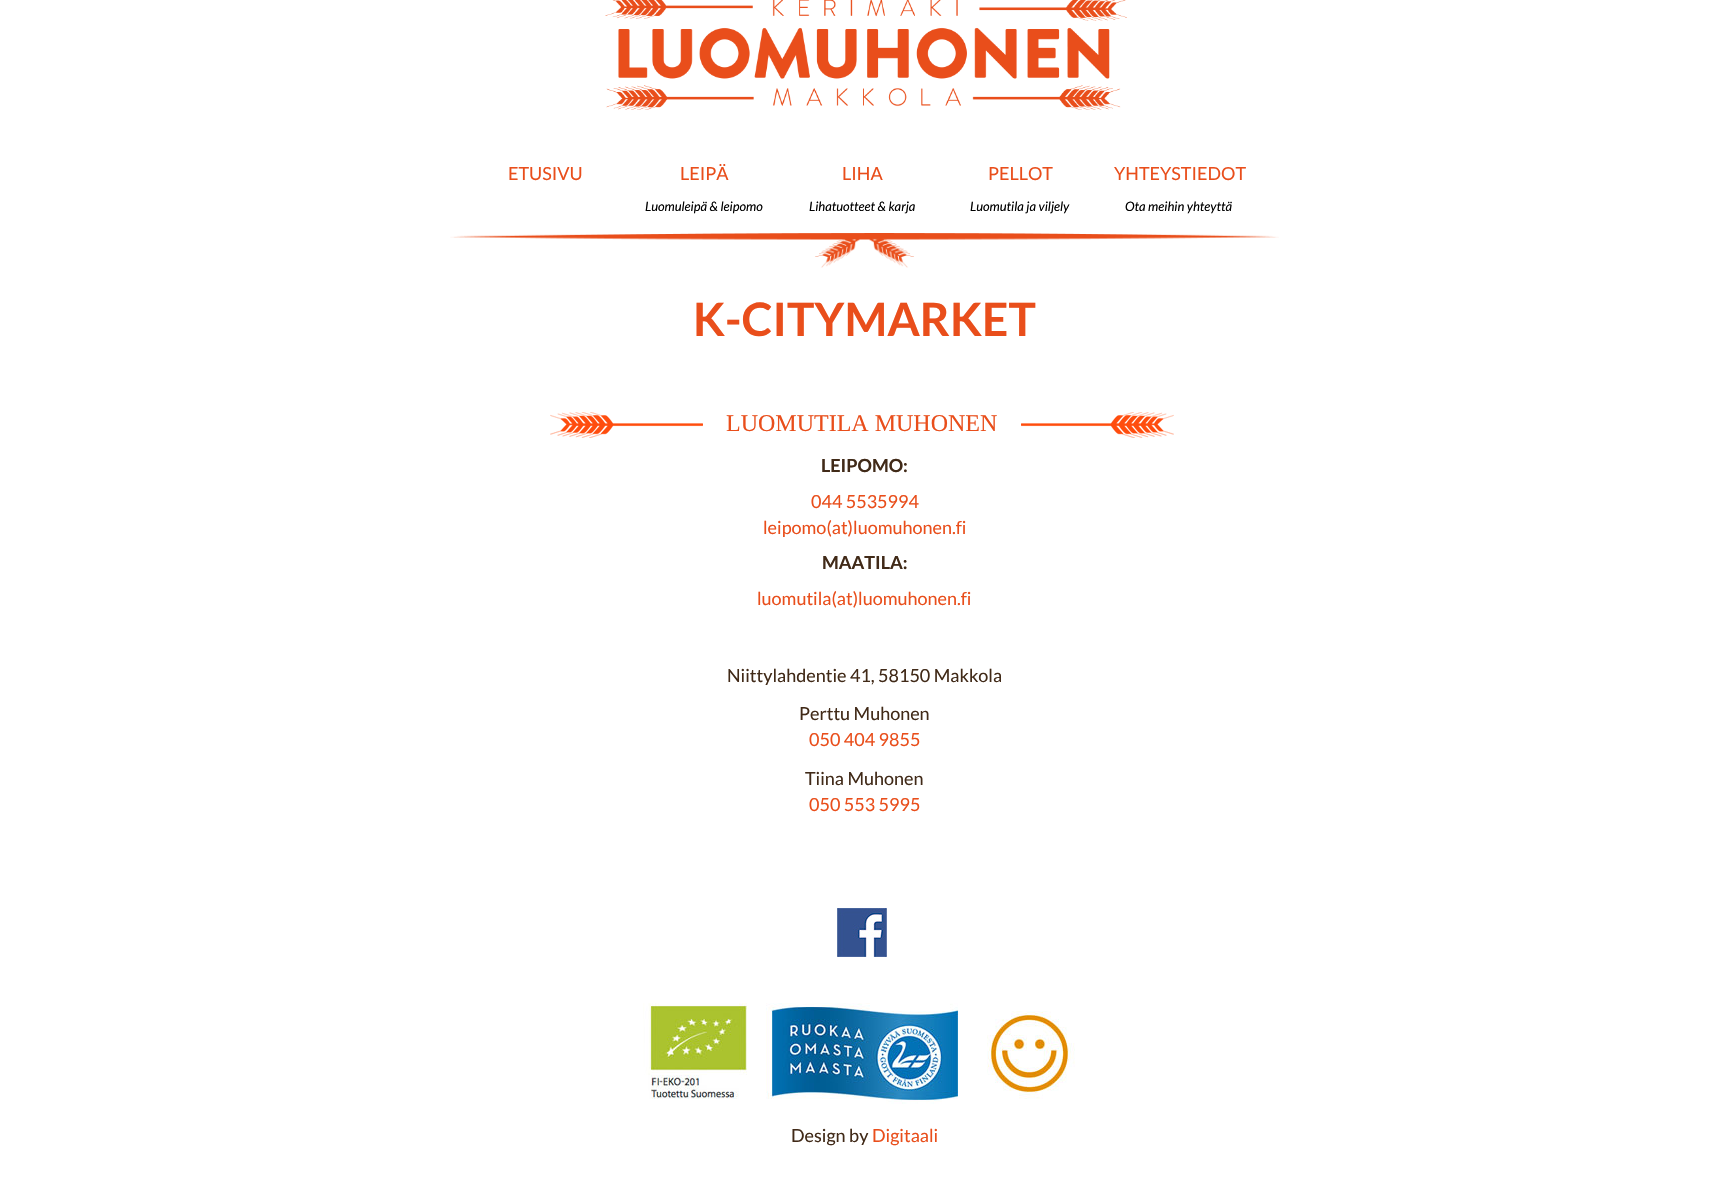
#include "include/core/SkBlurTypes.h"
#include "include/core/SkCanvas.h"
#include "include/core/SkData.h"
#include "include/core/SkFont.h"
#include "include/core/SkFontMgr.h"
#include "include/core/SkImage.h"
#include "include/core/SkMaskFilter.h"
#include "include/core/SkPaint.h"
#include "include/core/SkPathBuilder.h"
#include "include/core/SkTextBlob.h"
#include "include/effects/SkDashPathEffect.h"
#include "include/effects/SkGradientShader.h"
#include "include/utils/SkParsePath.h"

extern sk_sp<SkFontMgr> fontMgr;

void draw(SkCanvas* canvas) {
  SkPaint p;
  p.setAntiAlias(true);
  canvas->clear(SK_ColorWHITE);
  canvas->drawImageRect(SkImages::DeferredFromEncodedData(SkData::MakeFromFileName("images/1.png")), SkRect::MakeLTRB(605, 0, 1127, 110), SkSamplingOptions());
  canvas->drawImageRect(SkImages::DeferredFromEncodedData(SkData::MakeFromFileName("images/2.png")), SkRect::MakeLTRB(450, 233, 1279, 268), SkSamplingOptions());
  canvas->drawImageRect(SkImages::DeferredFromEncodedData(SkData::MakeFromFileName("images/3.png")), SkRect::MakeLTRB(550, 412, 703, 438), SkSamplingOptions());
  canvas->drawImageRect(SkImages::DeferredFromEncodedData(SkData::MakeFromFileName("images/4.png")), SkRect::MakeLTRB(1021, 412, 1174, 438), SkSamplingOptions());
  canvas->drawImageRect(SkImages::DeferredFromEncodedData(SkData::MakeFromFileName("images/5.png")), SkRect::MakeLTRB(837, 908, 887, 957), SkSamplingOptions());
  canvas->drawImageRect(SkImages::DeferredFromEncodedData(SkData::MakeFromFileName("images/6.png")), SkRect::MakeLTRB(643, 1003, 747, 1099), SkSamplingOptions());
  canvas->drawImageRect(SkImages::DeferredFromEncodedData(SkData::MakeFromFileName("images/7.png")), SkRect::MakeLTRB(766, 1003, 958, 1104), SkSamplingOptions());
  canvas->drawImageRect(SkImages::DeferredFromEncodedData(SkData::MakeFromFileName("images/8.png")), SkRect::MakeLTRB(987, 1011, 1075, 1099), SkSamplingOptions());
  SkFont font1(fontMgr->matchFamilyStyle("Lato", SkFontStyle::Normal()), 18);
  font1.setSubpixel(true);
  p.setColor(SkColorSetRGB(233, 78, 27));
  canvas->drawString("ETUSIVU", 508, 180, font1, p);
  canvas->drawString("LEIPÄ", 680, 180, font1, p);
  SkFont font2(fontMgr->matchFamilyStyle("Lato", SkFontStyle::Italic()), 13);
  font2.setSubpixel(true);
  p.setColor(SK_ColorBLACK);
  canvas->drawString("Luomuleipä & leipomo", 645, 211, font2, p);
  p.setColor(SkColorSetRGB(233, 78, 27));
  canvas->drawString("LIHA", 842, 180, font1, p);
  p.setColor(SK_ColorBLACK);
  canvas->drawString("Lihatuotteet & karja", 809, 211, font2, p);
  p.setColor(SkColorSetRGB(233, 78, 27));
  canvas->drawString("PELLOT", 988, 180, font1, p);
  p.setColor(SK_ColorBLACK);
  canvas->drawString("Luomutila ja viljely", 970, 211, font2, p);
  p.setColor(SkColorSetRGB(233, 78, 27));
  canvas->drawString("YHTEYSTIEDOT", 1114, 180, font1, p);
  p.setColor(SK_ColorBLACK);
  canvas->drawString("Ota meihin yhteyttä", 1125, 211, font2, p);
  SkFont font3(fontMgr->matchFamilyStyle("Lato", SkFontStyle::Bold()), 46);
  font3.setSubpixel(true);
  p.setColor(SkColorSetRGB(233, 78, 27));
  canvas->drawString("K-CITYMARKET", 693, 336, font3, p);
  SkFont font4(fontMgr->matchFamilyStyle("Liberation Serif", SkFontStyle::Normal()), 24);
  font4.setSubpixel(true);
  canvas->drawString("LUOMUTILA MUHONEN", 726, 431, font4, p);
  SkFont font5(fontMgr->matchFamilyStyle("Lato", SkFontStyle::Bold()), 18);
  font5.setSubpixel(true);
  p.setColor(SkColorSetRGB(65, 42, 24));
  canvas->drawString("LEIPOMO:", 821, 472, font5, p);
  p.setColor(SkColorSetRGB(233, 78, 27));
  canvas->drawString("044 5535994", 811, 508, font1, p);
  canvas->drawString("leipomo(at)luomuhonen.fi", 763, 534, font1, p);
  p.setColor(SkColorSetRGB(65, 42, 24));
  canvas->drawString("MAATILA:", 822, 569, font5, p);
  p.setColor(SkColorSetRGB(233, 78, 27));
  canvas->drawString("luomutila(at)luomuhonen.fi", 757, 605, font1, p);
  p.setColor(SkColorSetRGB(65, 42, 24));
  canvas->drawString("Niittylahdentie 41, 58150 Makkola", 727, 682, font1, p);
  canvas->drawString("Perttu Muhonen", 799, 720, font1, p);
  p.setColor(SkColorSetRGB(233, 78, 27));
  canvas->drawString("050 404 9855", 809, 746, font1, p);
  p.setColor(SkColorSetRGB(65, 42, 24));
  canvas->drawString("Tiina Muhonen", 805, 785, font1, p);
  p.setColor(SkColorSetRGB(233, 78, 27));
  canvas->drawString("050 553 5995", 809, 811, font1, p);
  p.setColor(SkColorSetRGB(65, 42, 24));
  canvas->drawString("Design by", 791, 1142, font1, p);
  p.setColor(SkColorSetRGB(233, 78, 27));
  canvas->drawString("Digitaali", 872, 1142, font1, p);
}
